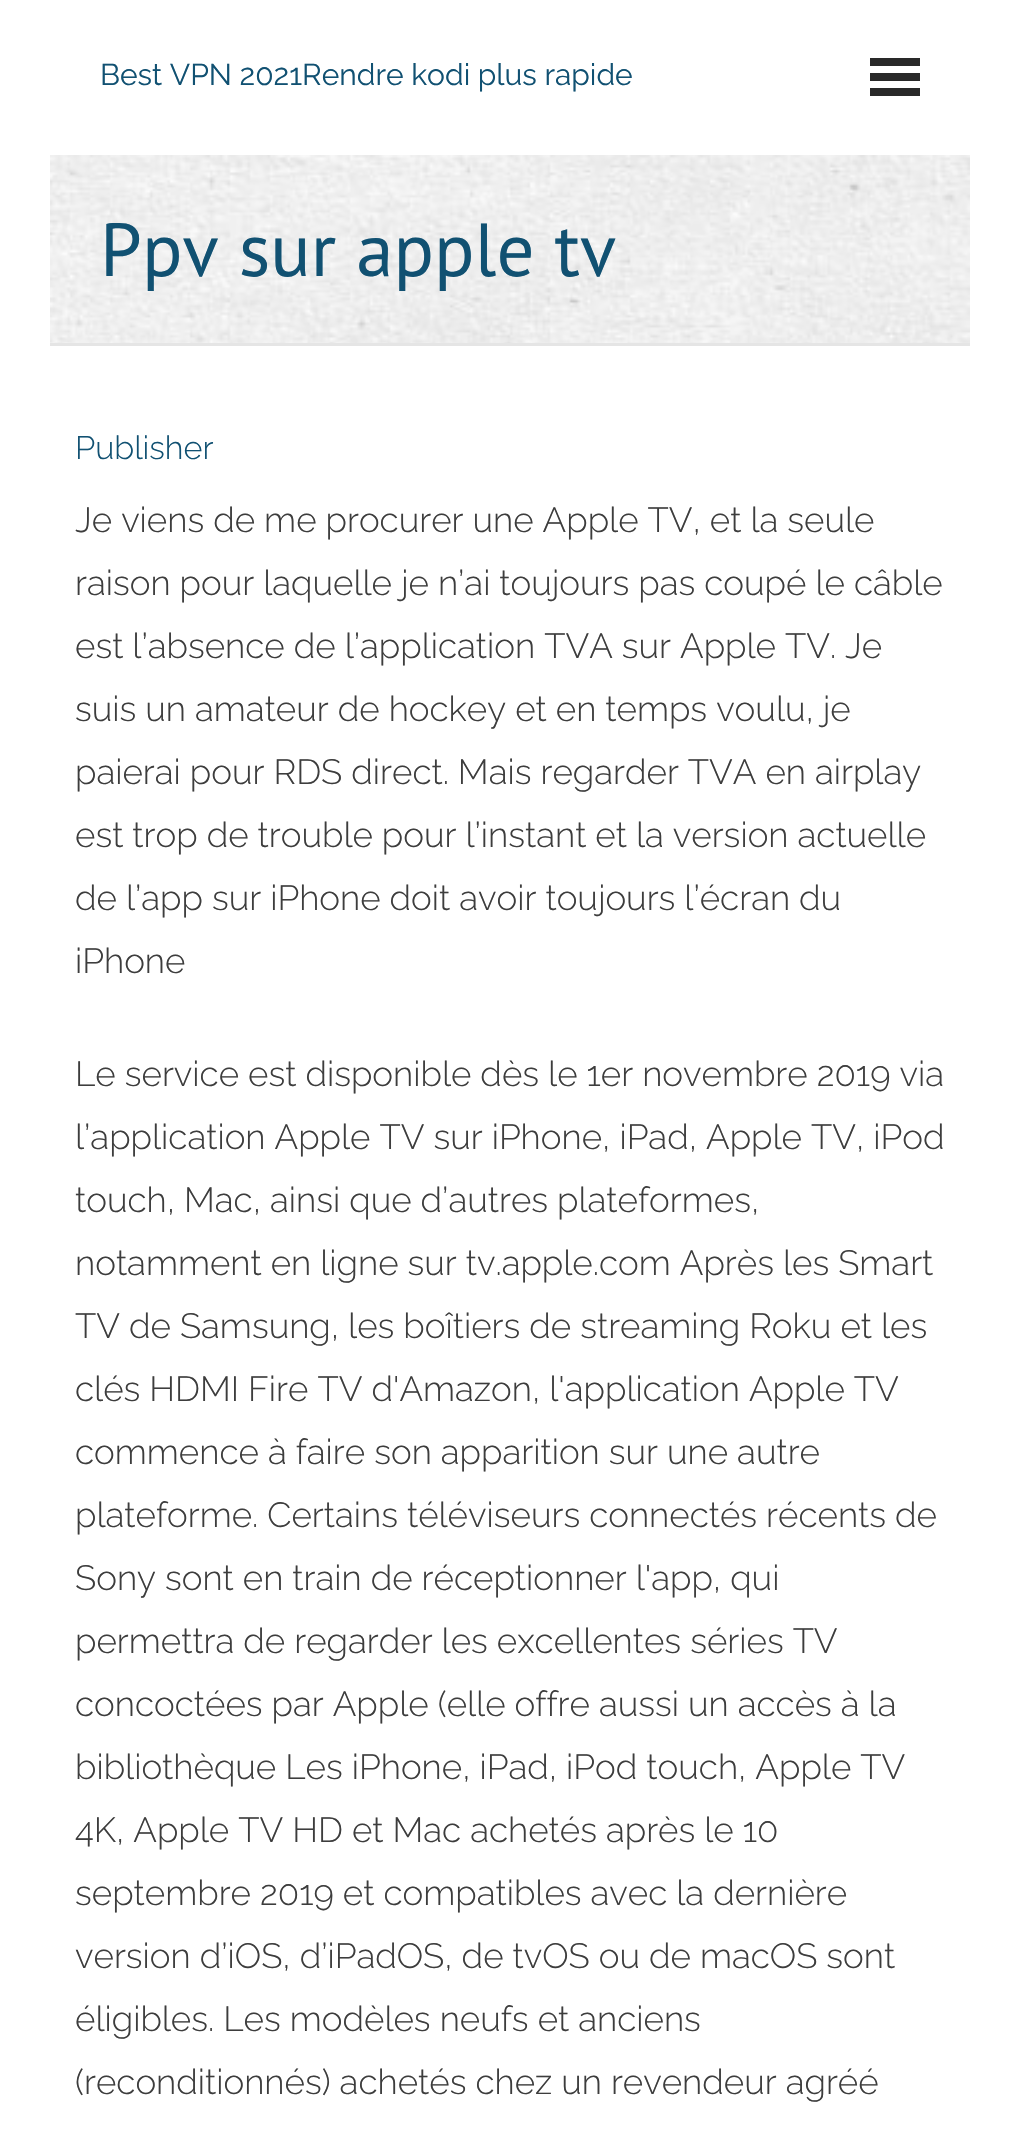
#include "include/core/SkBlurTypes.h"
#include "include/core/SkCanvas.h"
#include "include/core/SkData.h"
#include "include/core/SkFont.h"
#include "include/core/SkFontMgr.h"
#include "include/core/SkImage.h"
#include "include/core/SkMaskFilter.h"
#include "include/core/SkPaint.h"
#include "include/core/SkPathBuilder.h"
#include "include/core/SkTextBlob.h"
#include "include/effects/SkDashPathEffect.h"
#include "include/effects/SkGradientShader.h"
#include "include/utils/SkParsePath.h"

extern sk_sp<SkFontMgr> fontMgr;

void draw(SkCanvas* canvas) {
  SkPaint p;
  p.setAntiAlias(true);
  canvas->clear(SK_ColorWHITE);
  p.setColor(SkColorSetRGB(41, 41, 41));
  canvas->drawRect(SkRect::MakeLTRB(870, 58, 920, 66), p);
  canvas->drawRect(SkRect::MakeLTRB(870, 73, 920, 81), p);
  canvas->drawRect(SkRect::MakeLTRB(870, 88, 920, 96), p);
  canvas->drawImageRect(SkImages::DeferredFromEncodedData(SkData::MakeFromFileName("images/1.png")), SkRect::MakeLTRB(50, 155, 970, 343), SkSamplingOptions());
  p.setColor(SkColorSetRGB(229, 229, 229));
  canvas->drawRect(SkRect::MakeLTRB(50, 343, 970, 346), p);
  SkFont font1(fontMgr->matchFamilyStyle("Raleway", SkFontStyle::Normal()), 30);
  font1.setSubpixel(true);
  p.setColor(SkColorSetRGB(17, 81, 114));
  canvas->drawString("Best VPN 2021Rendre kodi plus rapide", 100, 85, font1, p);
  SkFont font2(fontMgr->matchFamilyStyle("PT Sans", SkFontStyle::Normal()), 75);
  font2.setSubpixel(true);
  canvas->drawString("Ppv sur apple tv", 100, 276, font2, p);
  SkFont font3(fontMgr->matchFamilyStyle("Raleway", SkFontStyle(300, SkFontStyle::kNormal_Width, SkFontStyle::kUpright_Slant)), 32.5f);
  font3.setSubpixel(true);
  canvas->drawString("Publisher", 75, 459, font3, p);
  SkFont font4(fontMgr->matchFamilyStyle("Raleway", SkFontStyle(300, SkFontStyle::kNormal_Width, SkFontStyle::kUpright_Slant)), 35);
  font4.setSubpixel(true);
  p.setColor(SkColorSetRGB(61, 61, 61));
  canvas->drawString("Je viens de me procurer une Apple TV, et la seule", 75, 532, font4, p);
  canvas->drawString("raison pour laquelle je n’ai toujours pas coupé le câble", 75, 595, font4, p);
  canvas->drawString("est l’absence de l’application TVA sur Apple TV. Je", 75, 658, font4, p);
  canvas->drawString("suis un amateur de hockey et en temps voulu, je", 75, 721, font4, p);
  canvas->drawString("paierai pour RDS direct. Mais regarder TVA en airplay", 75, 784, font4, p);
  canvas->drawString("est trop de trouble pour l’instant et la version actuelle", 75, 847, font4, p);
  canvas->drawString("de l’app sur iPhone doit avoir toujours l’écran du", 75, 910, font4, p);
  canvas->drawString("iPhone", 75, 973, font4, p);
  canvas->drawString("Le service est disponible dès le 1er novembre 2019 via", 75, 1086, font4, p);
  canvas->drawString("l’application Apple TV sur iPhone, iPad, Apple TV, iPod", 75, 1149, font4, p);
  canvas->drawString("touch, Mac, ainsi que d’autres plateformes,", 75, 1212, font4, p);
  canvas->drawString("notamment en ligne sur tv.apple.com Après les Smart", 75, 1275, font4, p);
  canvas->drawString("TV de Samsung, les boîtiers de streaming Roku et les", 75, 1338, font4, p);
  canvas->drawString("clés HDMI Fire TV d'Amazon, l'application Apple TV", 75, 1401, font4, p);
  canvas->drawString("commence à faire son apparition sur une autre", 75, 1464, font4, p);
  canvas->drawString("plateforme. Certains téléviseurs connectés récents de", 75, 1527, font4, p);
  canvas->drawString("Sony sont en train de réceptionner l'app, qui", 75, 1590, font4, p);
  canvas->drawString("permettra de regarder les excellentes séries TV", 75, 1653, font4, p);
  canvas->drawString("concoctées par Apple (elle offre aussi un accès à la", 75, 1716, font4, p);
  canvas->drawString("bibliothèque Les iPhone, iPad, iPod touch, Apple TV", 75, 1779, font4, p);
  canvas->drawString("4K, Apple TV HD et Mac achetés après le 10", 75, 1842, font4, p);
  canvas->drawString("septembre 2019 et compatibles avec la dernière", 75, 1905, font4, p);
  canvas->drawString("version d’iOS, d’iPadOS, de tvOS ou de macOS sont", 75, 1968, font4, p);
  canvas->drawString("éligibles. Les modèles neufs et anciens", 75, 2031, font4, p);
  canvas->drawString("(reconditionnés) achetés chez un revendeur agréé", 75, 2094, font4, p);
}
